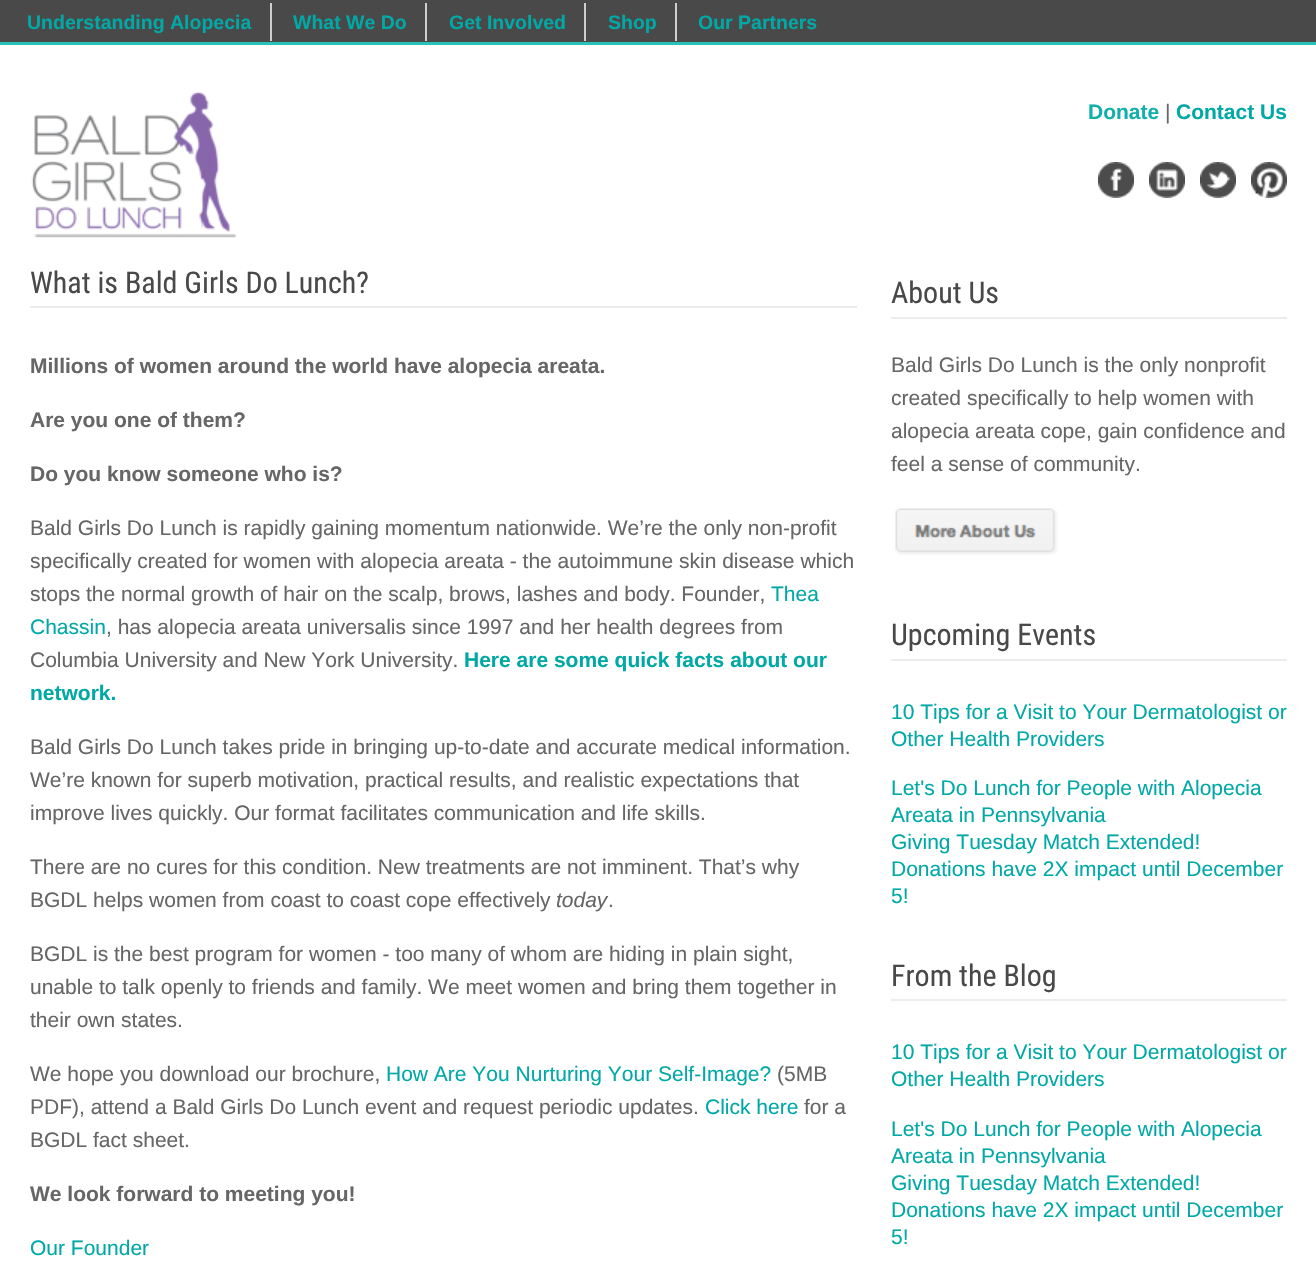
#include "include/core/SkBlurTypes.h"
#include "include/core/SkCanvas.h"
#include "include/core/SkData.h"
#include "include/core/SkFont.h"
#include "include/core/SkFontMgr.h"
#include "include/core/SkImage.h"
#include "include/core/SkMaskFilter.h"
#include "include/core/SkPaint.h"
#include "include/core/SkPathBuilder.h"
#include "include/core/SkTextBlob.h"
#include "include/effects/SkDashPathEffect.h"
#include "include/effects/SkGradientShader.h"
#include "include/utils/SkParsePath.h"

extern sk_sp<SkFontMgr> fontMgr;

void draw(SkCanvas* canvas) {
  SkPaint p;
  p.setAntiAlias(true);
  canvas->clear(SK_ColorWHITE);
  p.setColor(SkColorSetRGB(73, 73, 73));
  canvas->drawRect(SkRect::MakeLTRB(0, 0, 1316, 42), p);
  p.setColor(SkColorSetRGB(42, 193, 187));
  canvas->drawRect(SkRect::MakeLTRB(0, 42, 1316, 45), p);
  p.setColor(SkColorSetRGB(206, 206, 206));
  canvas->drawRect(SkRect::MakeLTRB(270, 3, 272, 41), p);
  canvas->drawRect(SkRect::MakeLTRB(425, 3, 427, 41), p);
  canvas->drawRect(SkRect::MakeLTRB(584, 3, 586, 41), p);
  canvas->drawRect(SkRect::MakeLTRB(675, 3, 677, 41), p);
  canvas->drawImageRect(SkImages::DeferredFromEncodedData(SkData::MakeFromFileName("images/1.png")), SkRect::MakeLTRB(31, 91, 237, 238), SkSamplingOptions());
  canvas->drawImageRect(SkImages::DeferredFromEncodedData(SkData::MakeFromFileName("images/2.png")), SkRect::MakeLTRB(1098, 162, 1134, 198), SkSamplingOptions());
  canvas->drawImageRect(SkImages::DeferredFromEncodedData(SkData::MakeFromFileName("images/3.png")), SkRect::MakeLTRB(1149, 162, 1185, 198), SkSamplingOptions());
  canvas->drawImageRect(SkImages::DeferredFromEncodedData(SkData::MakeFromFileName("images/4.png")), SkRect::MakeLTRB(1200, 162, 1236, 198), SkSamplingOptions());
  canvas->drawImageRect(SkImages::DeferredFromEncodedData(SkData::MakeFromFileName("images/5.png")), SkRect::MakeLTRB(1251, 162, 1287, 198), SkSamplingOptions());
  p.setColor(SkColorSetRGB(236, 236, 236));
  canvas->drawRect(SkRect::MakeLTRB(30, 306, 857, 308), p);
  canvas->drawRect(SkRect::MakeLTRB(891, 317, 1287, 319), p);
  canvas->drawImageRect(SkImages::DeferredFromEncodedData(SkData::MakeFromFileName("images/6.png")), SkRect::MakeLTRB(895, 508, 1058, 555), SkSamplingOptions());
  canvas->drawRect(SkRect::MakeLTRB(891, 659, 1287, 661), p);
  canvas->drawRect(SkRect::MakeLTRB(891, 999, 1287, 1001), p);
  SkFont font1(fontMgr->matchFamilyStyle("Liberation Sans", SkFontStyle::Bold()), 19.5f);
  font1.setSubpixel(true);
  p.setColor(SkColorSetRGB(0, 169, 166));
  canvas->drawString("Understanding Alopecia", 27, 29, font1, p);
  canvas->drawString("What We Do", 293, 29, font1, p);
  canvas->drawString("Get Involved", 449, 29, font1, p);
  canvas->drawString("Shop", 608, 29, font1, p);
  canvas->drawString("Our Partners", 698, 29, font1, p);
  SkFont font2(fontMgr->matchFamilyStyle("Liberation Sans", SkFontStyle::Bold()), 21);
  font2.setSubpixel(true);
  p.setColor(SkColorSetRGB(19, 175, 172));
  canvas->drawString("Donate", 1088, 119, font2, p);
  SkFont font3(fontMgr->matchFamilyStyle("Liberation Sans", SkFontStyle::Normal()), 21);
  font3.setSubpixel(true);
  p.setColor(SkColorSetRGB(102, 102, 102));
  canvas->drawString("|", 1165, 119, font3, p);
  p.setColor(SkColorSetRGB(0, 169, 166));
  canvas->drawString("Contact Us", 1176, 119, font2, p);
  SkFont font4(fontMgr->matchFamilyStyle("Roboto Condensed", SkFontStyle::Normal()), 30);
  font4.setSubpixel(true);
  p.setColor(SkColorSetRGB(73, 73, 73));
  canvas->drawString("What is Bald Girls Do Lunch?", 30, 293, font4, p);
  p.setColor(SkColorSetRGB(102, 102, 102));
  canvas->drawString("Millions of women around the world have alopecia areata.", 30, 373, font2, p);
  canvas->drawString("Are you one of them?", 30, 427, font2, p);
  canvas->drawString("Do you know someone who is?", 30, 481, font2, p);
  canvas->drawString("Bald Girls Do Lunch is rapidly gaining momentum nationwide. We’re the only non-profit", 30, 535, font3, p);
  canvas->drawString("specifically created for women with alopecia areata - the autoimmune skin disease which", 30, 568, font3, p);
  canvas->drawString("stops the normal growth of hair on the scalp, brows, lashes and body. Founder,", 30, 601, font3, p);
  p.setColor(SkColorSetRGB(0, 169, 166));
  canvas->drawString("Thea", 771, 601, font3, p);
  canvas->drawString("Chassin", 30, 634, font3, p);
  p.setColor(SkColorSetRGB(102, 102, 102));
  canvas->drawString(", has alopecia areata universalis since 1997 and her health degrees from", 106, 634, font3, p);
  canvas->drawString("Columbia University and New York University.", 30, 667, font3, p);
  p.setColor(SkColorSetRGB(0, 169, 166));
  canvas->drawString("Here are some quick facts about our", 464, 667, font2, p);
  canvas->drawString("network.", 30, 700, font2, p);
  p.setColor(SkColorSetRGB(102, 102, 102));
  canvas->drawString("Bald Girls Do Lunch takes pride in bringing up-to-date and accurate medical information.", 30, 754, font3, p);
  canvas->drawString("We’re known for superb motivation, practical results, and realistic expectations that", 30, 787, font3, p);
  canvas->drawString("improve lives quickly. Our format facilitates communication and life skills.", 30, 820, font3, p);
  canvas->drawString("There are no cures for this condition. New treatments are not imminent. That’s why", 30, 874, font3, p);
  canvas->drawString("BGDL helps women from coast to coast cope effectively", 30, 907, font3, p);
  SkFont font5(fontMgr->matchFamilyStyle("Liberation Sans", SkFontStyle::Italic()), 21);
  font5.setSubpixel(true);
  canvas->drawString("today", 556, 907, font5, p);
  canvas->drawString(".", 608, 907, font3, p);
  canvas->drawString("BGDL is the best program for women - too many of whom are hiding in plain sight,", 30, 961, font3, p);
  canvas->drawString("unable to talk openly to friends and family. We meet women and bring them together in", 30, 994, font3, p);
  canvas->drawString("their own states.", 30, 1027, font3, p);
  canvas->drawString("We hope you download our brochure,", 30, 1081, font3, p);
  p.setColor(SkColorSetRGB(0, 169, 166));
  canvas->drawString("How Are You Nurturing Your Self-Image?", 386, 1081, font3, p);
  p.setColor(SkColorSetRGB(102, 102, 102));
  canvas->drawString("(5MB", 777, 1081, font3, p);
  canvas->drawString("PDF), attend a Bald Girls Do Lunch event and request periodic updates.", 30, 1114, font3, p);
  p.setColor(SkColorSetRGB(0, 169, 166));
  canvas->drawString("Click here", 705, 1114, font3, p);
  p.setColor(SkColorSetRGB(102, 102, 102));
  canvas->drawString("for a", 804, 1114, font3, p);
  canvas->drawString("BGDL fact sheet.", 30, 1147, font3, p);
  canvas->drawString("We look forward to meeting you!", 30, 1201, font2, p);
  p.setColor(SkColorSetRGB(0, 169, 166));
  canvas->drawString("Our Founder", 30, 1255, font3, p);
  p.setColor(SkColorSetRGB(73, 73, 73));
  canvas->drawString("About Us", 891, 303, font4, p);
  p.setColor(SkColorSetRGB(102, 102, 102));
  canvas->drawString("Bald Girls Do Lunch is the only nonproﬁt", 891, 372, font3, p);
  canvas->drawString("created speciﬁcally to help women with", 891, 405, font3, p);
  canvas->drawString("alopecia areata cope, gain conﬁdence and", 891, 438, font3, p);
  canvas->drawString("feel a sense of community.", 891, 471, font3, p);
  p.setColor(SkColorSetRGB(73, 73, 73));
  canvas->drawString("Upcoming Events", 891, 645, font4, p);
  p.setColor(SkColorSetRGB(0, 169, 166));
  canvas->drawString("10 Tips for a Visit to Your Dermatologist or", 891, 719, font3, p);
  canvas->drawString("Other Health Providers", 891, 746, font3, p);
  canvas->drawString("Let's Do Lunch for People with Alopecia", 891, 795, font3, p);
  canvas->drawString("Areata in Pennsylvania", 891, 822, font3, p);
  canvas->drawString("Giving Tuesday Match Extended!", 891, 849, font3, p);
  canvas->drawString("Donations have 2X impact until December", 891, 876, font3, p);
  canvas->drawString("5!", 891, 903, font3, p);
  p.setColor(SkColorSetRGB(73, 73, 73));
  canvas->drawString("From the Blog", 891, 986, font4, p);
  p.setColor(SkColorSetRGB(0, 169, 166));
  canvas->drawString("10 Tips for a Visit to Your Dermatologist or", 891, 1059, font3, p);
  canvas->drawString("Other Health Providers", 891, 1086, font3, p);
  canvas->drawString("Let's Do Lunch for People with Alopecia", 891, 1136, font3, p);
  canvas->drawString("Areata in Pennsylvania", 891, 1163, font3, p);
  canvas->drawString("Giving Tuesday Match Extended!", 891, 1190, font3, p);
  canvas->drawString("Donations have 2X impact until December", 891, 1217, font3, p);
  canvas->drawString("5!", 891, 1244, font3, p);
}
